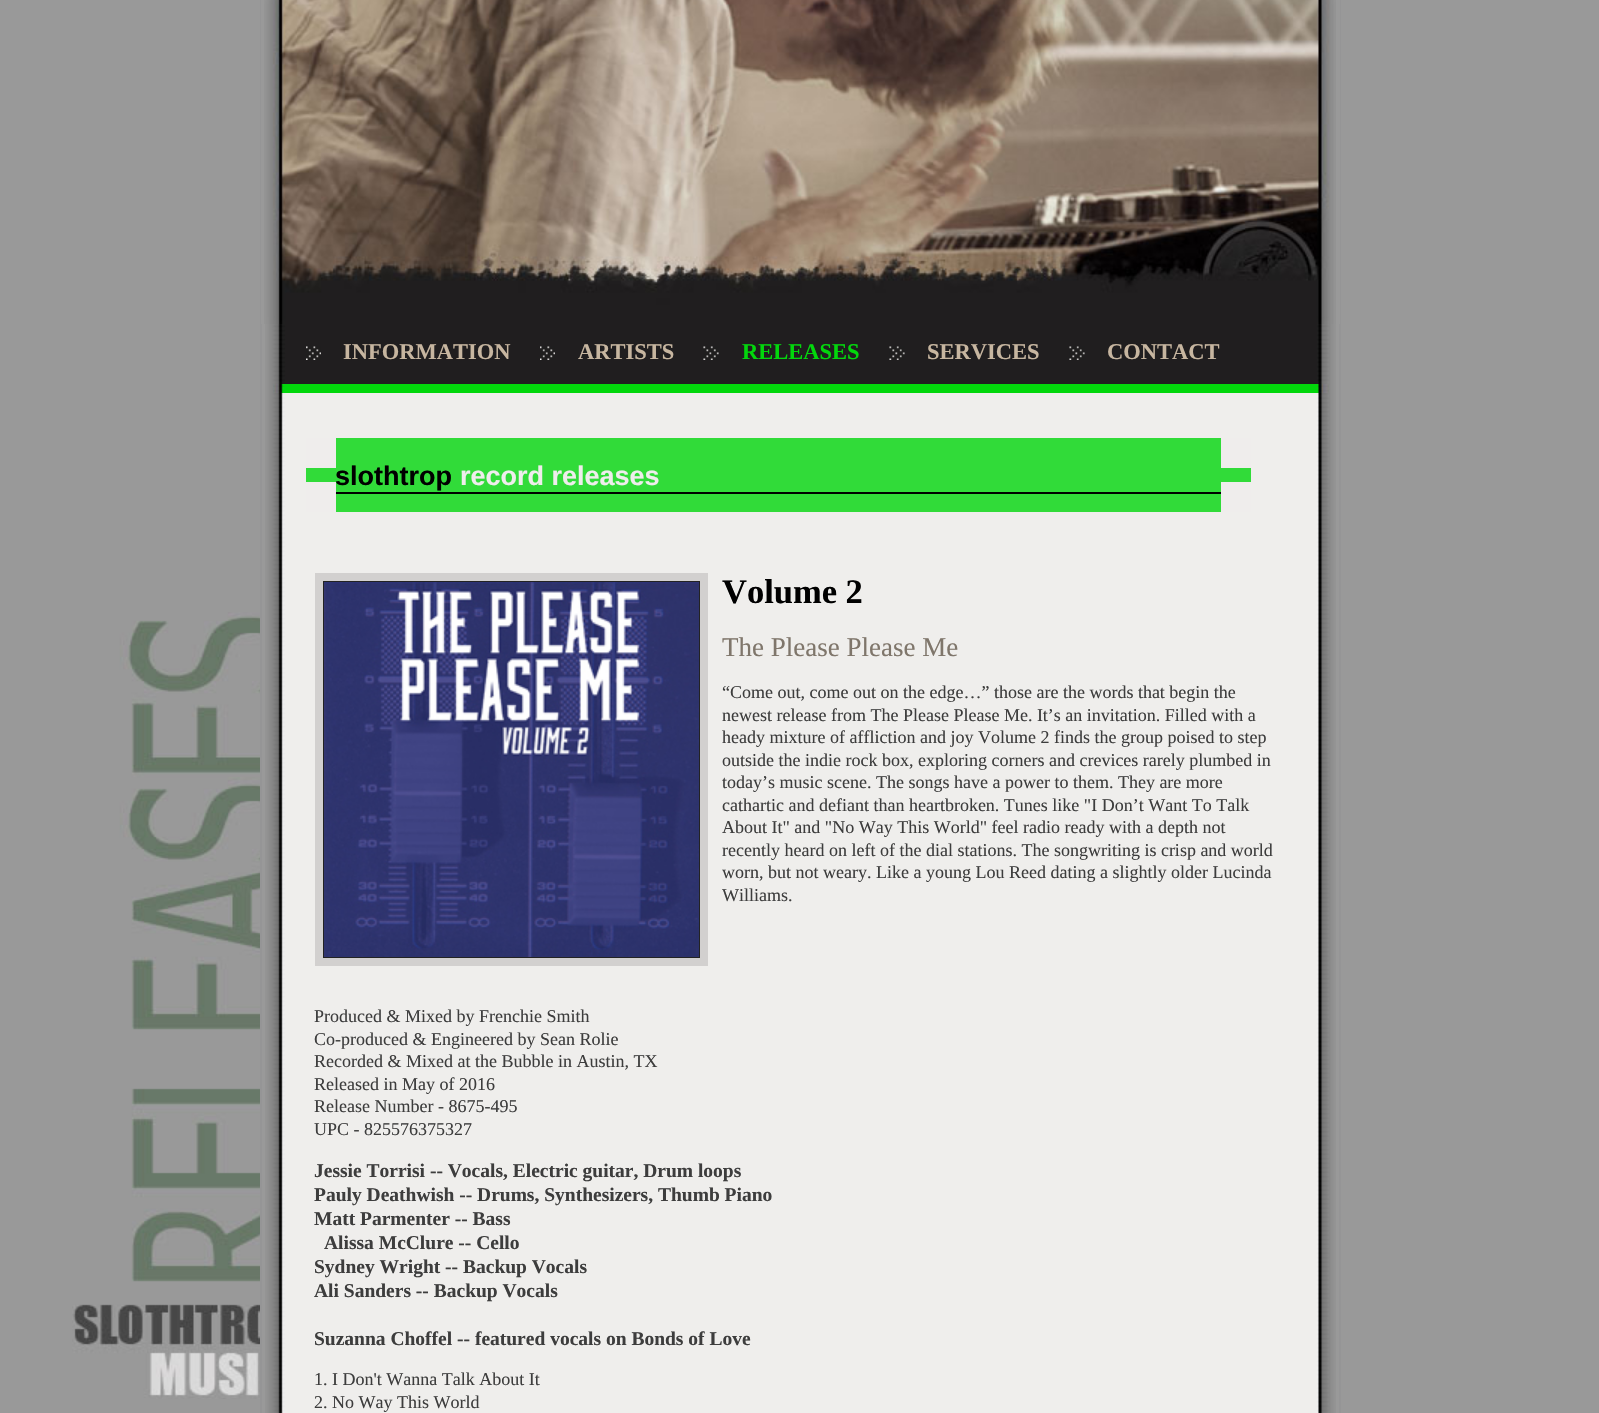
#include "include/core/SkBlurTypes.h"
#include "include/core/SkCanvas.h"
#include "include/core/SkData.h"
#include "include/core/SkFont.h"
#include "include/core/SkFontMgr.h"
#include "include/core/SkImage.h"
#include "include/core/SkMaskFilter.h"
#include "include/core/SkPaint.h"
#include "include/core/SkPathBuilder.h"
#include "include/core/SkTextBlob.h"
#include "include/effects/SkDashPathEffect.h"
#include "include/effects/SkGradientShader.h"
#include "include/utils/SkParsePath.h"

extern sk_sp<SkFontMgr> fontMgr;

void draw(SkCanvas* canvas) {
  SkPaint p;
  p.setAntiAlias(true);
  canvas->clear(SkColorSetRGB(153, 153, 153));
  canvas->drawImageRect(SkImages::DeferredFromEncodedData(SkData::MakeFromFileName("images/1.png")), SkRect::MakeLTRB(72, 612, 260, 1399), SkSamplingOptions());
  canvas->drawImageRect(SkImages::DeferredFromEncodedData(SkData::MakeFromFileName("images/2.png")), SkRect::MakeLTRB(265, 324, 1336, 1413), SkSamplingOptions());
  p.setStyle(SkPaint::kStroke_Style);
  p.setStrokeWidth(2);
  p.setColor(SkColorSetRGB(149, 149, 150));
  canvas->drawRect(SkRect::MakeLTRB(261, -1, 1340, 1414), p);
  p.setStyle(SkPaint::kFill_Style);
  p.setColor(SkColorSetRGB(153, 153, 153));
  canvas->drawRect(SkRect::MakeLTRB(261, 0, 1340, 324), p);
  canvas->drawImageRect(SkImages::DeferredFromEncodedData(SkData::MakeFromFileName("images/3.png")), SkRect::MakeLTRB(264, 0, 1336, 324), SkSamplingOptions());
  canvas->drawImageRect(SkImages::DeferredFromEncodedData(SkData::MakeFromFileName("images/4.png")), SkRect::MakeLTRB(281, 324, 1319, 384), SkSamplingOptions());
  canvas->drawImageRect(SkImages::DeferredFromEncodedData(SkData::MakeFromFileName("images/5.png")), SkRect::MakeLTRB(306, 346, 321, 360), SkSamplingOptions());
  canvas->drawImageRect(SkImages::DeferredFromEncodedData(SkData::MakeFromFileName("images/6.png")), SkRect::MakeLTRB(540, 346, 555, 360), SkSamplingOptions());
  canvas->drawImageRect(SkImages::DeferredFromEncodedData(SkData::MakeFromFileName("images/7.png")), SkRect::MakeLTRB(703, 346, 719, 360), SkSamplingOptions());
  canvas->drawImageRect(SkImages::DeferredFromEncodedData(SkData::MakeFromFileName("images/8.png")), SkRect::MakeLTRB(889, 346, 905, 360), SkSamplingOptions());
  canvas->drawImageRect(SkImages::DeferredFromEncodedData(SkData::MakeFromFileName("images/8.png")), SkRect::MakeLTRB(1069, 346, 1085, 360), SkSamplingOptions());
  canvas->drawImageRect(SkImages::DeferredFromEncodedData(SkData::MakeFromFileName("images/9.png")), SkRect::MakeLTRB(273, 384, 1329, 393), SkSamplingOptions());
  p.setColor(SkColorSetRGB(49, 219, 57));
  canvas->drawRect(SkRect::MakeLTRB(306, 438, 1251, 512), p);
  p.setColor(SkColorSetRGB(239, 237, 236));
  canvas->drawRect(SkRect::MakeLTRB(306, 438, 336, 468), p);
  canvas->drawRect(SkRect::MakeLTRB(1221, 438, 1251, 468), p);
  p.setColor(SK_ColorBLACK);
  canvas->drawRect(SkRect::MakeLTRB(336, 492, 1229, 494), p);
  p.setColor(SkColorSetRGB(239, 237, 236));
  canvas->drawRect(SkRect::MakeLTRB(306, 482, 336, 512), p);
  canvas->drawRect(SkRect::MakeLTRB(1221, 482, 1251, 512), p);
  p.setColor(SkColorSetRGB(35, 35, 35));
  canvas->drawRect(SkRect::MakeLTRB(319, 577, 704, 962), p);
  p.setStyle(SkPaint::kStroke_Style);
  p.setStrokeWidth(8);
  p.setColor(SkColorSetRGB(210, 208, 207));
  canvas->drawRect(SkRect::MakeLTRB(319, 577, 704, 962), p);
  canvas->drawImageRect(SkImages::DeferredFromEncodedData(SkData::MakeFromFileName("images/10.png")), SkRect::MakeLTRB(324, 582, 699, 957), SkSamplingOptions());
  SkFont font1(fontMgr->matchFamilyStyle("Liberation Serif", SkFontStyle::Bold()), 22.5f);
  font1.setSubpixel(true);
  p.setStyle(SkPaint::kFill_Style);
  p.setColor(SkColorSetRGB(199, 182, 160));
  canvas->drawString("INFORMATION", 343, 359, font1, p);
  canvas->drawString("ARTISTS", 578, 359, font1, p);
  p.setColor(SkColorSetRGB(2, 215, 12));
  canvas->drawString("RELEASES", 742, 359, font1, p);
  p.setColor(SkColorSetRGB(199, 182, 160));
  canvas->drawString("SERVICES", 927, 359, font1, p);
  canvas->drawString("CONTACT", 1107, 359, font1, p);
  SkFont font2(fontMgr->matchFamilyStyle("Liberation Sans", SkFontStyle::Bold()), 27);
  font2.setSubpixel(true);
  p.setColor(SK_ColorBLACK);
  canvas->drawString("slothtrop", 335, 485, font2, p);
  p.setColor(SkColorSetRGB(239, 237, 236));
  canvas->drawString("record releases", 460, 485, font2, p);
  SkFont font3(fontMgr->matchFamilyStyle("Liberation Serif", SkFontStyle::Bold()), 34.5f);
  font3.setSubpixel(true);
  p.setColor(SK_ColorBLACK);
  canvas->drawString("Volume 2", 722, 603, font3, p);
  SkFont font4(fontMgr->matchFamilyStyle("Liberation Serif", SkFontStyle::Normal()), 27);
  font4.setSubpixel(true);
  p.setColor(SkColorSetRGB(127, 118, 107));
  canvas->drawString("The Please Please Me", 722, 656, font4, p);
  SkFont font5(fontMgr->matchFamilyStyle("Liberation Serif", SkFontStyle::Normal()), 18);
  font5.setSubpixel(true);
  p.setColor(SkColorSetRGB(61, 61, 61));
  canvas->drawString("“Come out, come out on the edge…” those are the words that begin the", 722, 698, font5, p);
  canvas->drawString("newest release from The Please Please Me. It’s an invitation. Filled with a", 722, 721, font5, p);
  canvas->drawString("heady mixture of affliction and joy Volume 2 finds the group poised to step", 722, 743, font5, p);
  canvas->drawString("outside the indie rock box, exploring corners and crevices rarely plumbed in", 722, 766, font5, p);
  canvas->drawString("today’s music scene. The songs have a power to them. They are more", 722, 788, font5, p);
  canvas->drawString("cathartic and defiant than heartbroken. Tunes like \"I Don’t Want To Talk", 722, 811, font5, p);
  canvas->drawString("About It\" and \"No Way This World\" feel radio ready with a depth not", 722, 833, font5, p);
  canvas->drawString("recently heard on left of the dial stations. The songwriting is crisp and world", 722, 856, font5, p);
  canvas->drawString("worn, but not weary. Like a young Lou Reed dating a slightly older Lucinda", 722, 878, font5, p);
  canvas->drawString("Williams.", 722, 901, font5, p);
  canvas->drawString("Produced & Mixed by Frenchie Smith", 314, 1022, font5, p);
  canvas->drawString("Co-produced & Engineered by Sean Rolie", 314, 1045, font5, p);
  canvas->drawString("Recorded & Mixed at the Bubble in Austin, TX", 314, 1067, font5, p);
  canvas->drawString("Released in May of 2016", 314, 1090, font5, p);
  canvas->drawString("Release Number - 8675-495", 314, 1112, font5, p);
  canvas->drawString("UPC - 825576375327", 314, 1135, font5, p);
  SkFont font6(fontMgr->matchFamilyStyle("Liberation Serif", SkFontStyle::Bold()), 19.5f);
  font6.setSubpixel(true);
  canvas->drawString("Jessie Torrisi -- Vocals, Electric guitar, Drum loops", 314, 1177, font6, p);
  canvas->drawString("Pauly Deathwish -- Drums, Synthesizers, Thumb Piano", 314, 1201, font6, p);
  canvas->drawString("Matt Parmenter -- Bass", 314, 1225, font6, p);
  canvas->drawString("Alissa McClure -- Cello", 324, 1249, font6, p);
  canvas->drawString("Sydney Wright -- Backup Vocals", 314, 1273, font6, p);
  canvas->drawString("Ali Sanders -- Backup Vocals", 314, 1297, font6, p);
  canvas->drawString("Suzanna Choffel -- featured vocals on Bonds of Love", 314, 1345, font6, p);
  canvas->drawString("1. I Don't Wanna Talk About It", 314, 1385, font5, p);
  canvas->drawString("2. No Way This World", 314, 1408, font5, p);
}
